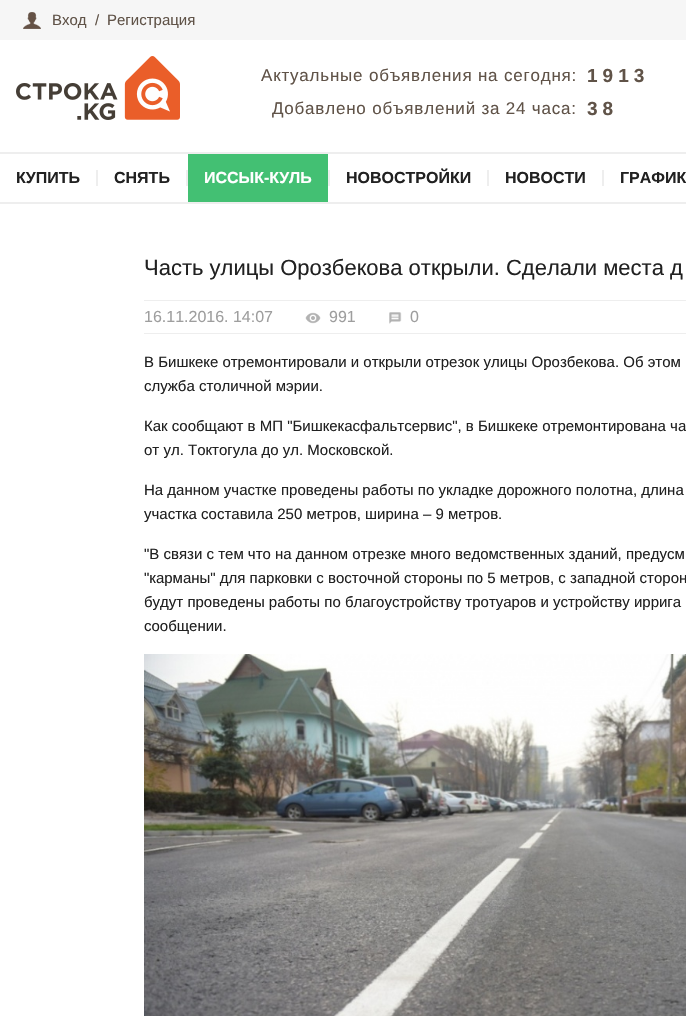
#include "include/core/SkBlurTypes.h"
#include "include/core/SkCanvas.h"
#include "include/core/SkData.h"
#include "include/core/SkFont.h"
#include "include/core/SkFontMgr.h"
#include "include/core/SkImage.h"
#include "include/core/SkMaskFilter.h"
#include "include/core/SkPaint.h"
#include "include/core/SkPathBuilder.h"
#include "include/core/SkTextBlob.h"
#include "include/effects/SkDashPathEffect.h"
#include "include/effects/SkGradientShader.h"
#include "include/utils/SkParsePath.h"

extern sk_sp<SkFontMgr> fontMgr;

void draw(SkCanvas* canvas) {
  SkPaint p;
  p.setAntiAlias(true);
  auto spacedText = [&](const char* s, float x, float y, const SkFont& font, const SkPaint& ink, float letter, float word) {
    std::vector<SkGlyphID> glyphs(font.countText(s, strlen(s), SkTextEncoding::kUTF8));
    std::vector<float> xs(glyphs.size());
    font.textToGlyphs(s, strlen(s), SkTextEncoding::kUTF8, glyphs);
    font.getXPos(glyphs, xs, x);
    float extra = 0;
    for (size_t i = 0; i < glyphs.size(); i++) {
      xs[i] += extra;
      extra += letter + word * (glyphs[i] == font.unicharToGlyph(' '));
    }
    canvas->drawTextBlob(SkTextBlob::MakeFromPosHGlyphs(glyphs, xs, y, font), 0, 0, ink);
  };
  canvas->clear(SK_ColorWHITE);
  p.setColor(SkColorSetRGB(246, 246, 246));
  canvas->drawRect(SkRect::MakeLTRB(0, 0, 686, 40), p);
  canvas->drawImageRect(SkImages::DeferredFromEncodedData(SkData::MakeFromFileName("images/1.png")), SkRect::MakeLTRB(23, 12, 41, 29), SkSamplingOptions());
  canvas->drawImageRect(SkImages::DeferredFromEncodedData(SkData::MakeFromFileName("images/2.png")), SkRect::MakeLTRB(16, 56, 180, 120), SkSamplingOptions());
  p.setColor(SkColorSetRGB(238, 238, 238));
  canvas->drawRect(SkRect::MakeLTRB(0, 152, 686, 154), p);
  canvas->drawRect(SkRect::MakeLTRB(0, 202, 686, 204), p);
  canvas->drawRect(SkRect::MakeLTRB(96, 170, 98, 186), p);
  canvas->drawRect(SkRect::MakeLTRB(186, 170, 188, 186), p);
  p.setColor(SkColorSetRGB(67, 192, 115));
  canvas->drawRect(SkRect::MakeLTRB(188, 154, 328, 202), p);
  p.setColor(SkColorSetRGB(238, 238, 238));
  canvas->drawRect(SkRect::MakeLTRB(328, 170, 330, 186), p);
  canvas->drawRect(SkRect::MakeLTRB(487, 170, 489, 186), p);
  canvas->drawRect(SkRect::MakeLTRB(602, 170, 604, 186), p);
  canvas->drawRect(SkRect::MakeLTRB(144, 300, 686, 301), p);
  canvas->drawRect(SkRect::MakeLTRB(144, 333, 686, 334), p);
  canvas->drawImageRect(SkImages::DeferredFromEncodedData(SkData::MakeFromFileName("images/3.png")), SkRect::MakeLTRB(305, 312, 321, 324), SkSamplingOptions());
  canvas->drawImageRect(SkImages::DeferredFromEncodedData(SkData::MakeFromFileName("images/4.png")), SkRect::MakeLTRB(389, 312, 402, 324), SkSamplingOptions());
  canvas->drawImageRect(SkImages::DeferredFromEncodedData(SkData::MakeFromFileName("images/5.png")), SkRect::MakeLTRB(144, 654, 686, 1016), SkSamplingOptions());
  SkFont font1(fontMgr->matchFamilyStyle("Liberation Sans", SkFontStyle::Normal()), 15);
  font1.setSubpixel(true);
  p.setColor(SkColorSetRGB(96, 83, 72));
  canvas->drawString("Вход", 52, 25, font1, p);
  canvas->drawString("/", 95, 25, font1, p);
  canvas->drawString("Регистрация", 107, 25, font1, p);
  SkFont font2(fontMgr->matchFamilyStyle("Liberation Sans", SkFontStyle::Normal()), 17);
  font2.setSubpixel(true);
  spacedText("Актуальные объявления на сегодня:", 261, 81, font2, p, 0.8f, 0);
  SkFont font3(fontMgr->matchFamilyStyle("Liberation Sans", SkFontStyle::Bold()), 19);
  font3.setSubpixel(true);
  spacedText("1913", 587, 82, font3, p, 5, 0);
  spacedText("Добавлено объявлений за 24 часа:", 272, 114, font2, p, 0.8f, 0);
  spacedText("38", 587, 115, font3, p, 5, 0);
  SkFont font4(fontMgr->matchFamilyStyle("Liberation Sans", SkFontStyle::Bold()), 16);
  font4.setSubpixel(true);
  p.setColor(SkColorSetRGB(33, 33, 33));
  canvas->drawString("КУПИТЬ", 16, 183, font4, p);
  canvas->drawString("СНЯТЬ", 114, 183, font4, p);
  p.setColor(SK_ColorWHITE);
  canvas->drawString("ИССЫК-КУЛЬ", 204, 183, font4, p);
  p.setColor(SkColorSetRGB(33, 33, 33));
  canvas->drawString("НОВОСТРОЙКИ", 346, 183, font4, p);
  canvas->drawString("НОВОСТИ", 505, 183, font4, p);
  canvas->drawString("ГРАФИК", 620, 183, font4, p);
  SkFont font5(fontMgr->matchFamilyStyle("Liberation Sans", SkFontStyle::Normal()), 22);
  font5.setSubpixel(true);
  canvas->drawString("Часть улицы Орозбекова открыли. Сделали места д", 144, 275, font5, p);
  SkFont font6(fontMgr->matchFamilyStyle("Liberation Sans", SkFontStyle::Normal()), 16);
  font6.setSubpixel(true);
  p.setColor(SkColorSetRGB(158, 158, 158));
  canvas->drawString("16.11.2016. 14:07", 144, 322, font6, p);
  canvas->drawString("991", 329, 322, font6, p);
  canvas->drawString("0", 410, 322, font6, p);
  p.setColor(SkColorSetRGB(33, 33, 33));
  canvas->drawString("В Бишкеке отремонтировали и открыли отрезок улицы Орозбекова. Об этом", 144, 367, font1, p);
  canvas->drawString("служба столичной мэрии.", 144, 391, font1, p);
  canvas->drawString("Как сообщают в МП \"Бишкекасфальтсервис\", в Бишкеке отремонтирована ча", 144, 431, font1, p);
  canvas->drawString("от ул. Токтогула до ул. Московской.", 144, 455, font1, p);
  canvas->drawString("На данном участке проведены работы по укладке дорожного полотна, длина", 144, 495, font1, p);
  canvas->drawString("участка составила 250 метров, ширина – 9 метров.", 144, 519, font1, p);
  canvas->drawString("\"В связи с тем что на данном отрезке много ведомственных зданий, предусм", 144, 559, font1, p);
  canvas->drawString("\"карманы\" для парковки с восточной стороны по 5 метров, с западной сторон", 144, 583, font1, p);
  canvas->drawString("будут проведены работы по благоустройству тротуаров и устройству иррига", 144, 607, font1, p);
  canvas->drawString("сообщении.", 144, 631, font1, p);
}
